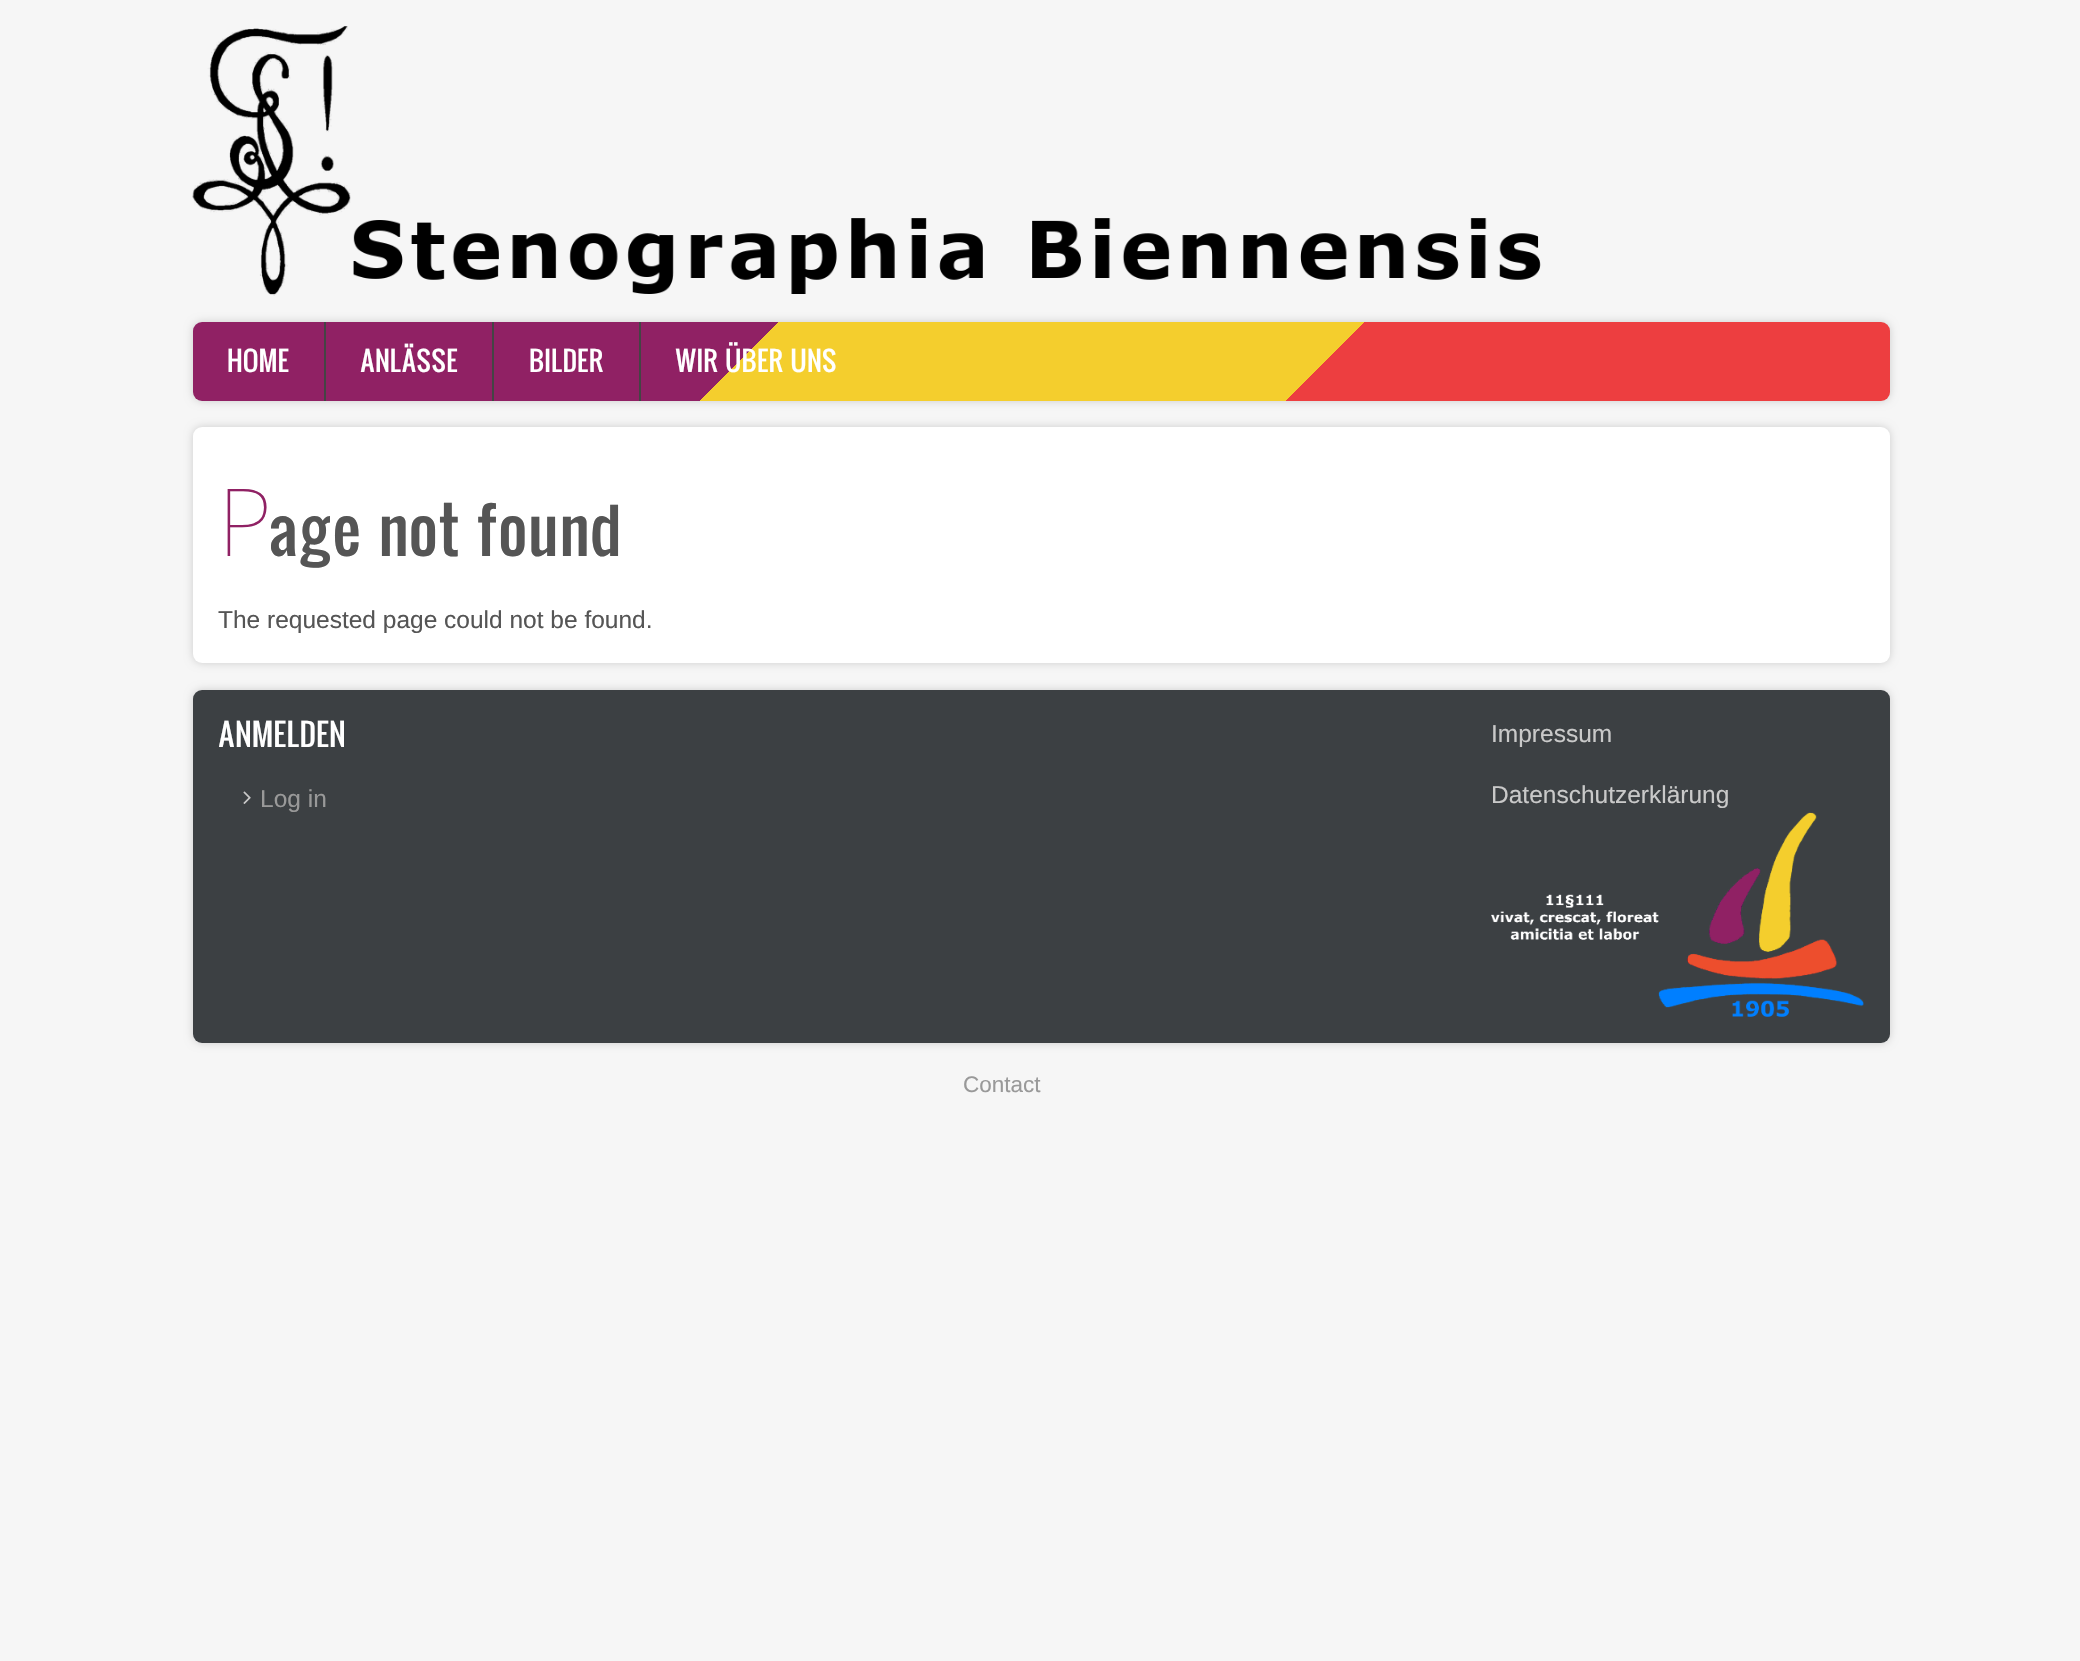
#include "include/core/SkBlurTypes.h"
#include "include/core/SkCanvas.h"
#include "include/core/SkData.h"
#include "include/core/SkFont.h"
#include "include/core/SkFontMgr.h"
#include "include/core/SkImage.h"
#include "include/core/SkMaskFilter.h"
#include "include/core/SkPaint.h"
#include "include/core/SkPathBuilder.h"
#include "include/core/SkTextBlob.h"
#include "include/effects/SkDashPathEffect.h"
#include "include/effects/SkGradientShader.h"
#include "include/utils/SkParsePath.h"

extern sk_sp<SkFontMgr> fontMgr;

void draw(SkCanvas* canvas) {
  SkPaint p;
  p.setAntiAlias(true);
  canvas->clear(SkColorSetRGB(246, 246, 246));
  canvas->drawImageRect(SkImages::DeferredFromEncodedData(SkData::MakeFromFileName("images/1.png")), SkRect::MakeLTRB(192, 26, 1541, 296), SkSamplingOptions());
  p.setColor(SkColorSetRGB(204, 204, 204));
  p.setMaskFilter(SkMaskFilter::MakeBlur(kNormal_SkBlurStyle, 4.5f));
  canvas->drawRoundRect(SkRect::MakeLTRB(193, 322, 1890, 401), 9, 9, p);
  p.setMaskFilter(nullptr);
  {
    const SkColor colors[] = {SkColorSetRGB(144, 33, 100), SkColorSetRGB(144, 33, 100), SkColorSetRGB(244, 206, 45), SkColorSetRGB(244, 206, 45), SkColorSetRGB(237, 62, 64), SkColorSetRGB(237, 62, 64)};
    const float stops[] = {0, 0.33f, 0.33f, 0.66f, 0.66f, 1};
    const SkPoint ends[] = {{597, -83}, {1485, 805}};
    p.setShader(SkGradientShader::MakeLinear(ends, colors, stops, 6, SkTileMode::kClamp));
    p.setAlpha(255);
  }
  canvas->drawRoundRect(SkRect::MakeLTRB(193, 322, 1890, 401), 9, 9, p);
  p.setShader(nullptr);
  p.setColor(SkColorSetRGB(68, 68, 68));
  canvas->drawRect(SkRect::MakeLTRB(324, 322, 326, 401), p);
  canvas->drawRect(SkRect::MakeLTRB(492, 322, 494, 401), p);
  canvas->drawRect(SkRect::MakeLTRB(639, 322, 641, 401), p);
  p.setColor(SkColorSetRGB(204, 204, 204));
  p.setMaskFilter(SkMaskFilter::MakeBlur(kNormal_SkBlurStyle, 4.5f));
  canvas->drawRoundRect(SkRect::MakeLTRB(193, 427, 1890, 663), 9, 9, p);
  p.setMaskFilter(nullptr);
  p.setColor(SK_ColorWHITE);
  canvas->drawRoundRect(SkRect::MakeLTRB(193, 427, 1890, 663), 9, 9, p);
  p.setColor(SkColorSetRGB(204, 204, 204));
  p.setMaskFilter(SkMaskFilter::MakeBlur(kNormal_SkBlurStyle, 4.5f));
  canvas->drawRoundRect(SkRect::MakeLTRB(193, 690, 1890, 1043), 9, 9, p);
  p.setMaskFilter(nullptr);
  p.setColor(SkColorSetRGB(60, 64, 67));
  canvas->drawRoundRect(SkRect::MakeLTRB(193, 690, 1890, 1043), 9, 9, p);
  canvas->drawImageRect(SkImages::DeferredFromEncodedData(SkData::MakeFromFileName("images/2.png")), SkRect::MakeLTRB(243, 791, 251, 804), SkSamplingOptions());
  canvas->drawImageRect(SkImages::DeferredFromEncodedData(SkData::MakeFromFileName("images/3.png")), SkRect::MakeLTRB(1491, 812, 1864, 1017), SkSamplingOptions());
  SkFont font1(fontMgr->matchFamilyStyle("Oswald", SkFontStyle::Normal()), 26.5f);
  font1.setSubpixel(true);
  p.setColor(SK_ColorWHITE);
  canvas->drawString("HOME", 227, 372, font1, p);
  canvas->drawString("ANLÄSSE", 360, 372, font1, p);
  canvas->drawString("BILDER", 529, 372, font1, p);
  canvas->drawString("WIR ÜBER UNS", 675, 372, font1, p);
  SkFont font2(fontMgr->matchFamilyStyle("Noto Sans", SkFontStyle(100, SkFontStyle::kNormal_Width, SkFontStyle::kUpright_Slant)), 94);
  font2.setSubpixel(true);
  p.setColor(SkColorSetRGB(144, 33, 100));
  canvas->drawString("P", 218, 556, font2, p);
  SkFont font3(fontMgr->matchFamilyStyle("Oswald", SkFontStyle::Normal()), 63);
  font3.setSubpixel(true);
  p.setColor(SkColorSetRGB(85, 85, 85));
  canvas->drawString("age not found", 268, 556, font3, p);
  SkFont font4(fontMgr->matchFamilyStyle("Liberation Sans", SkFontStyle::Normal()), 24.5f);
  font4.setSubpixel(true);
  canvas->drawString("The requested page could not be found.", 218, 628, font4, p);
  SkFont font5(fontMgr->matchFamilyStyle("Oswald", SkFontStyle::Normal()), 30);
  font5.setSubpixel(true);
  p.setColor(SK_ColorWHITE);
  canvas->drawString("ANMELDEN", 218, 747, font5, p);
  p.setColor(SkColorSetRGB(153, 153, 153));
  canvas->drawString("Log in", 260, 807, font4, p);
  p.setColor(SkColorSetRGB(201, 201, 201));
  canvas->drawString("Impressum", 1491, 742, font4, p);
  canvas->drawString("Datenschutzerklärung", 1491, 803, font4, p);
  SkFont font6(fontMgr->matchFamilyStyle("Liberation Sans", SkFontStyle::Normal()), 22.5f);
  font6.setSubpixel(true);
  p.setColor(SkColorSetRGB(153, 153, 153));
  canvas->drawString("Contact", 963, 1092, font6, p);
}
